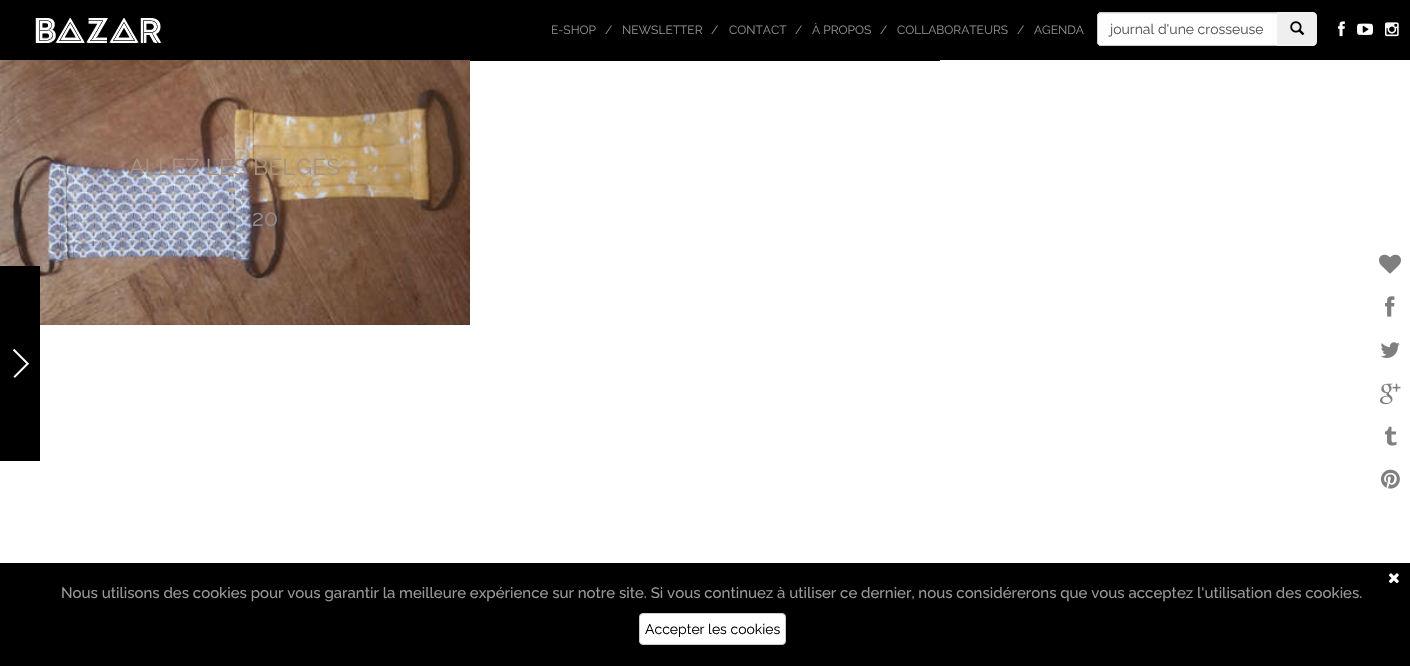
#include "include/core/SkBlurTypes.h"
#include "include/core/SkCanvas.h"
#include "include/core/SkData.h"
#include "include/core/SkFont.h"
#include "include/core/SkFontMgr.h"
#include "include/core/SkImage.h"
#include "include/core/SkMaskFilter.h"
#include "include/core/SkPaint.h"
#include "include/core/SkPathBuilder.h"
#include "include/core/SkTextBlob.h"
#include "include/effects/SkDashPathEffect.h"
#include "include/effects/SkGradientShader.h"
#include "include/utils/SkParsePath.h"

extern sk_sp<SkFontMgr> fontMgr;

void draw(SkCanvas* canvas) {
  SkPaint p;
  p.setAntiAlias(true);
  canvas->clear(SK_ColorWHITE);
  p.setColor(SK_ColorBLACK);
  canvas->drawRect(SkRect::MakeLTRB(0, 0, 1410, 60), p);
  canvas->drawImageRect(SkImages::DeferredFromEncodedData(SkData::MakeFromFileName("images/1.png")), SkRect::MakeLTRB(35, 18, 162, 43), SkSamplingOptions());
  p.setColor(SK_ColorWHITE);
  canvas->drawPath(SkPathBuilder().moveTo(1101, 12).lineTo(1278, 12).lineTo(1278, 46).lineTo(1101, 46).cubicTo(1099, 46, 1097, 44, 1097, 42).lineTo(1097, 16).cubicTo(1097, 14, 1099, 12, 1101, 12).close().detach(), p);
  p.setColor(SkColorSetRGB(236, 236, 236));
  canvas->drawPath(SkPathBuilder().moveTo(1101, 14).lineTo(1277, 14).lineTo(1277, 13).lineTo(1100, 13).cubicTo(1098, 14, 1098, 15, 1098, 17).cubicTo(1098, 15, 1099, 14, 1101, 14).close().detach(), p);
  p.setStyle(SkPaint::kStroke_Style);
  p.setStrokeWidth(1);
  p.setColor(SkColorSetRGB(204, 204, 204));
  canvas->drawPath(SkPathBuilder().moveTo(1101, 12.5f).lineTo(1277.5f, 12.5f).lineTo(1277.5f, 45.5f).lineTo(1101, 45.5f).cubicTo(1099, 45.5f, 1097.5f, 44, 1097.5f, 42).lineTo(1097.5f, 16).cubicTo(1097.5f, 14, 1099, 12.5f, 1101, 12.5f).close().detach(), p);
  p.setStyle(SkPaint::kFill_Style);
  p.setColor(SkColorSetRGB(239, 239, 239));
  canvas->drawPath(SkPathBuilder().moveTo(1277, 12).lineTo(1313, 12).cubicTo(1315, 12, 1317, 14, 1317, 16).lineTo(1317, 42).cubicTo(1317, 44, 1315, 46, 1313, 46).lineTo(1277, 46).close().detach(), p);
  canvas->drawImageRect(SkImages::DeferredFromEncodedData(SkData::MakeFromFileName("images/2.png")), SkRect::MakeLTRB(1290, 21, 1305, 36), SkSamplingOptions());
  canvas->drawImageRect(SkImages::DeferredFromEncodedData(SkData::MakeFromFileName("images/3.png")), SkRect::MakeLTRB(1338, 21, 1345, 37), SkSamplingOptions());
  canvas->drawImageRect(SkImages::DeferredFromEncodedData(SkData::MakeFromFileName("images/4.png")), SkRect::MakeLTRB(1357, 23, 1373, 35), SkSamplingOptions());
  canvas->drawImageRect(SkImages::DeferredFromEncodedData(SkData::MakeFromFileName("images/5.png")), SkRect::MakeLTRB(1385, 22, 1399, 37), SkSamplingOptions());
  p.setColor(SK_ColorBLACK);
  canvas->drawRect(SkRect::MakeLTRB(470, 60, 940, 61), p);
  canvas->drawImageRect(SkImages::DeferredFromEncodedData(SkData::MakeFromFileName("images/6.png")), SkRect::MakeLTRB(0, 60, 470, 325), SkSamplingOptions());
  p.setColor(SkColorSetARGB(13, 0, 0, 0));
  canvas->drawPath(SkPathBuilder().moveTo(470, 60).lineTo(470, 325).lineTo(469, 324).lineTo(469, 60).close().detach(), p);
  canvas->drawPath(SkPathBuilder().moveTo(470, 325).lineTo(0, 325).lineTo(0, 324).lineTo(469, 324).close().detach(), p);
  canvas->drawImageRect(SkImages::DeferredFromEncodedData(SkData::MakeFromFileName("images/7.png")), SkRect::MakeLTRB(1379, 254, 1401, 274), SkSamplingOptions());
  canvas->drawImageRect(SkImages::DeferredFromEncodedData(SkData::MakeFromFileName("images/8.png")), SkRect::MakeLTRB(1385, 296, 1395, 317), SkSamplingOptions());
  canvas->drawImageRect(SkImages::DeferredFromEncodedData(SkData::MakeFromFileName("images/9.png")), SkRect::MakeLTRB(1380, 342, 1400, 358), SkSamplingOptions());
  canvas->drawImageRect(SkImages::DeferredFromEncodedData(SkData::MakeFromFileName("images/10.png")), SkRect::MakeLTRB(1380, 383, 1401, 405), SkSamplingOptions());
  canvas->drawImageRect(SkImages::DeferredFromEncodedData(SkData::MakeFromFileName("images/11.png")), SkRect::MakeLTRB(1384, 426, 1397, 446), SkSamplingOptions());
  canvas->drawImageRect(SkImages::DeferredFromEncodedData(SkData::MakeFromFileName("images/12.png")), SkRect::MakeLTRB(1381, 469, 1400, 489), SkSamplingOptions());
  p.setColor(SK_ColorBLACK);
  canvas->drawRect(SkRect::MakeLTRB(0, 266, 40, 461), p);
  canvas->drawImageRect(SkImages::DeferredFromEncodedData(SkData::MakeFromFileName("images/13.png")), SkRect::MakeLTRB(12, 348, 29, 378), SkSamplingOptions());
  canvas->drawRect(SkRect::MakeLTRB(0, 563, 1410, 666), p);
  canvas->drawImageRect(SkImages::DeferredFromEncodedData(SkData::MakeFromFileName("images/14.png")), SkRect::MakeLTRB(1389, 573, 1399, 584), SkSamplingOptions());
  p.setColor(SK_ColorWHITE);
  canvas->drawRoundRect(SkRect::MakeLTRB(639.5f, 613.5f, 785.5f, 644.5f), 3.5f, 3.5f, p);
  p.setStyle(SkPaint::kStroke_Style);
  p.setColor(SkColorSetRGB(204, 204, 204));
  canvas->drawRoundRect(SkRect::MakeLTRB(639.5f, 613.5f, 785.5f, 644.5f), 3.5f, 3.5f, p);
  SkFont font1(fontMgr->matchFamilyStyle("Raleway", SkFontStyle::Normal()), 12);
  font1.setSubpixel(true);
  p.setStyle(SkPaint::kFill_Style);
  p.setColor(SkColorSetRGB(145, 143, 144));
  canvas->drawString("E-SHOP", 551, 34, font1, p);
  canvas->drawString("/", 605, 34, font1, p);
  canvas->drawString("NEWSLETTER", 622, 34, font1, p);
  canvas->drawString("/", 711, 34, font1, p);
  canvas->drawString("CONTACT", 729, 34, font1, p);
  canvas->drawString("/", 795, 34, font1, p);
  canvas->drawString("À PROPOS", 812, 34, font1, p);
  canvas->drawString("/", 880, 34, font1, p);
  canvas->drawString("COLLABORATEURS", 897, 34, font1, p);
  canvas->drawString("/", 1017, 34, font1, p);
  canvas->drawString("AGENDA", 1034, 34, font1, p);
  SkFont font2(fontMgr->matchFamilyStyle("Raleway", SkFontStyle::Normal()), 14);
  font2.setSubpixel(true);
  p.setColor(SkColorSetRGB(85, 85, 85));
  canvas->drawString("journal d'une crosseuse", 1110, 34, font2, p);
  SkFont font3(fontMgr->matchFamilyStyle("Raleway", SkFontStyle::Normal()), 23);
  font3.setSubpixel(true);
  p.setColor(SkColorSetRGB(168, 146, 128));
  canvas->drawString("ALLEZ LES BELGES", 129, 175, font3, p);
  p.setColor(SkColorSetRGB(142, 139, 151));
  canvas->drawString("20", 252, 226, font3, p);
  SkFont font4(fontMgr->matchFamilyStyle("Raleway", SkFontStyle(500, SkFontStyle::kNormal_Width, SkFontStyle::kUpright_Slant)), 15);
  font4.setSubpixel(true);
  p.setColor(SkColorSetRGB(153, 153, 153));
  canvas->drawString("Nous utilisons des cookies pour vous garantir la meilleure expérience sur notre site. Si vous continuez à utiliser ce dernier, nous considérerons que vous acceptez l'utilisation des cookies.", 61, 598, font4, p);
  p.setColor(SK_ColorBLACK);
  canvas->drawString("Accepter les cookies", 645, 634, font2, p);
}
